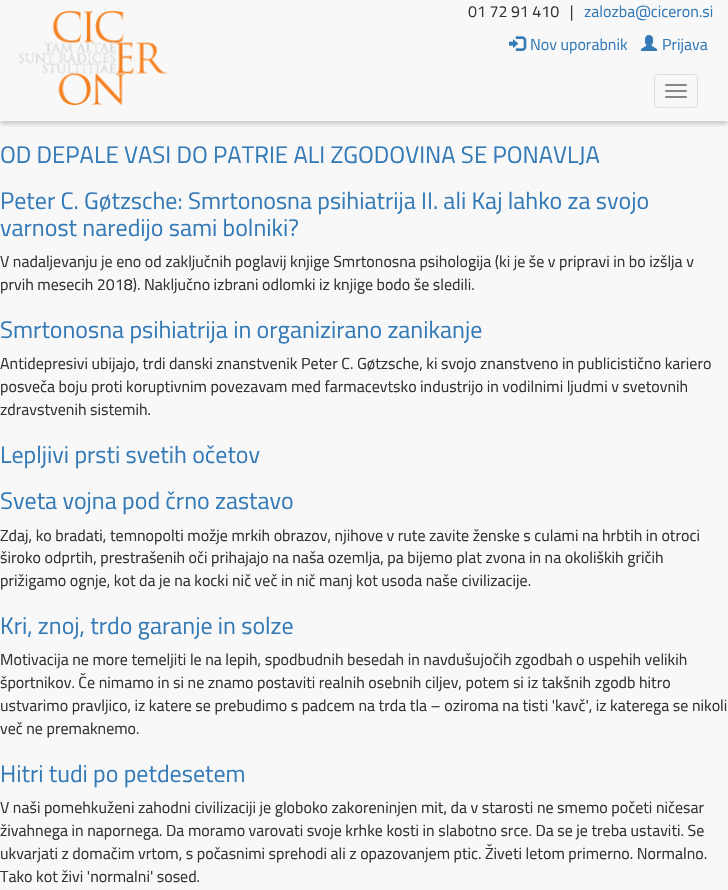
#include "include/core/SkBlurTypes.h"
#include "include/core/SkCanvas.h"
#include "include/core/SkData.h"
#include "include/core/SkFont.h"
#include "include/core/SkFontMgr.h"
#include "include/core/SkImage.h"
#include "include/core/SkMaskFilter.h"
#include "include/core/SkPaint.h"
#include "include/core/SkPathBuilder.h"
#include "include/core/SkTextBlob.h"
#include "include/effects/SkDashPathEffect.h"
#include "include/effects/SkGradientShader.h"
#include "include/utils/SkParsePath.h"

extern sk_sp<SkFontMgr> fontMgr;

void draw(SkCanvas* canvas) {
  SkPaint p;
  p.setAntiAlias(true);
  canvas->clear(SkColorSetRGB(248, 248, 248));
  canvas->save();
  canvas->clipRect(SkRect::MakeLTRB(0, 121, 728, 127));
  p.setColor(SkColorSetARGB(51, 0, 0, 0));
  p.setMaskFilter(SkMaskFilter::MakeBlur(kNormal_SkBlurStyle, 2.5f));
  canvas->drawRect(SkRect::MakeLTRB(0, 3, 728, 124), p);
  p.setMaskFilter(nullptr);
  canvas->restore();
  canvas->drawImageRect(SkImages::DeferredFromEncodedData(SkData::MakeFromFileName("images/1.png")), SkRect::MakeLTRB(19, 10, 167, 105), SkSamplingOptions());
  canvas->drawImageRect(SkImages::DeferredFromEncodedData(SkData::MakeFromFileName("images/2.png")), SkRect::MakeLTRB(509, 36, 527, 51), SkSamplingOptions());
  canvas->drawImageRect(SkImages::DeferredFromEncodedData(SkData::MakeFromFileName("images/3.png")), SkRect::MakeLTRB(641, 35, 657, 51), SkSamplingOptions());
  p.setStyle(SkPaint::kStroke_Style);
  p.setStrokeWidth(1);
  p.setColor(SkColorSetRGB(221, 221, 221));
  canvas->drawRoundRect(SkRect::MakeLTRB(654.5f, 74.5f, 697.5f, 107.5f), 3.5f, 3.5f, p);
  p.setStyle(SkPaint::kFill_Style);
  p.setColor(SkColorSetRGB(136, 136, 136));
  canvas->drawRoundRect(SkRect::MakeLTRB(665, 84, 687, 86), 1, 1, p);
  canvas->drawRoundRect(SkRect::MakeLTRB(665, 90, 687, 92), 1, 1, p);
  canvas->drawRoundRect(SkRect::MakeLTRB(665, 96, 687, 98), 1, 1, p);
  SkFont font1(fontMgr->matchFamilyStyle("Titillium Web", SkFontStyle::Normal()), 16);
  font1.setSubpixel(true);
  p.setColor(SkColorSetRGB(51, 51, 51));
  canvas->drawString("01 72 91 410   |", 468, 17, font1, p);
  p.setColor(SkColorSetRGB(51, 122, 183));
  canvas->drawString("zalozba@ciceron.si", 584, 17, font1, p);
  canvas->drawString("Nov uporabnik", 530, 50, font1, p);
  canvas->drawString("Prijava", 662, 50, font1, p);
  SkFont font2(fontMgr->matchFamilyStyle("Titillium Web", SkFontStyle::Normal()), 24);
  font2.setSubpixel(true);
  canvas->drawString("OD DEPALE VASI DO PATRIE ALI ZGODOVINA SE PONAVLJA", 0, 163, font2, p);
  canvas->drawString("Peter C. Gøtzsche: Smrtonosna psihiatrija II. ali Kaj lahko za svojo", 0, 209, font2, p);
  canvas->drawString("varnost naredijo sami bolniki?", 0, 236, font2, p);
  p.setColor(SkColorSetRGB(51, 51, 51));
  canvas->drawString("V nadaljevanju je eno od zaključnih poglavij knjige Smrtonosna psihologija (ki je še v pripravi in bo izšlja v", 0, 267, font1, p);
  canvas->drawString("prvih mesecih 2018). Naključno izbrani odlomki iz knjige bodo še sledili.", 0, 290, font1, p);
  p.setColor(SkColorSetRGB(51, 122, 183));
  canvas->drawString("Smrtonosna psihiatrija in organizirano zanikanje", 0, 338, font2, p);
  p.setColor(SkColorSetRGB(51, 51, 51));
  canvas->drawString("Antidepresivi ubijajo, trdi danski znanstvenik Peter C. Gøtzsche, ki svojo znanstveno in publicistično kariero", 0, 369, font1, p);
  canvas->drawString("posveča boju proti koruptivnim povezavam med farmacevtsko industrijo in vodilnimi ljudmi v svetovnih", 0, 392, font1, p);
  canvas->drawString("zdravstvenih sistemih.", 0, 415, font1, p);
  p.setColor(SkColorSetRGB(51, 122, 183));
  canvas->drawString("Lepljivi prsti svetih očetov", 0, 463, font2, p);
  canvas->drawString("Sveta vojna pod črno zastavo", 0, 509, font2, p);
  p.setColor(SkColorSetRGB(51, 51, 51));
  canvas->drawString("Zdaj, ko bradati, temnopolti možje mrkih obrazov, njihove v rute zavite ženske s culami na hrbtih in otroci", 0, 541, font1, p);
  canvas->drawString("široko odprtih, prestrašenih oči prihajajo na naša ozemlja, pa bijemo plat zvona in na okoliških gričih", 0, 563, font1, p);
  canvas->drawString("prižigamo ognje, kot da je na kocki nič več in nič manj kot usoda naše civilizacije.", 0, 586, font1, p);
  p.setColor(SkColorSetRGB(51, 122, 183));
  canvas->drawString("Kri, znoj, trdo garanje in solze", 0, 634, font2, p);
  p.setColor(SkColorSetRGB(51, 51, 51));
  canvas->drawString("Motivacija ne more temeljiti le na lepih, spodbudnih besedah in navdušujočih zgodbah o uspehih velikih", 0, 665, font1, p);
  canvas->drawString("športnikov. Če nimamo in si ne znamo postaviti realnih osebnih ciljev, potem si iz takšnih zgodb hitro", 0, 688, font1, p);
  canvas->drawString("ustvarimo pravljico, iz katere se prebudimo s padcem na trda tla – oziroma na tisti 'kavč', iz katerega se nikoli", 0, 711, font1, p);
  canvas->drawString("več ne premaknemo.", 0, 734, font1, p);
  p.setColor(SkColorSetRGB(51, 122, 183));
  canvas->drawString("Hitri tudi po petdesetem", 0, 782, font2, p);
  p.setColor(SkColorSetRGB(51, 51, 51));
  canvas->drawString("V naši pomehkuženi zahodni civilizaciji je globoko zakoreninjen mit, da v starosti ne smemo početi ničesar", 0, 813, font1, p);
  canvas->drawString("živahnega in napornega. Da moramo varovati svoje krhke kosti in slabotno srce. Da se je treba ustaviti. Se", 0, 836, font1, p);
  canvas->drawString("ukvarjati z domačim vrtom, s počasnimi sprehodi ali z opazovanjem ptic. Živeti letom primerno. Normalno.", 0, 859, font1, p);
  canvas->drawString("Tako kot živi 'normalni' sosed.", 0, 882, font1, p);
}
